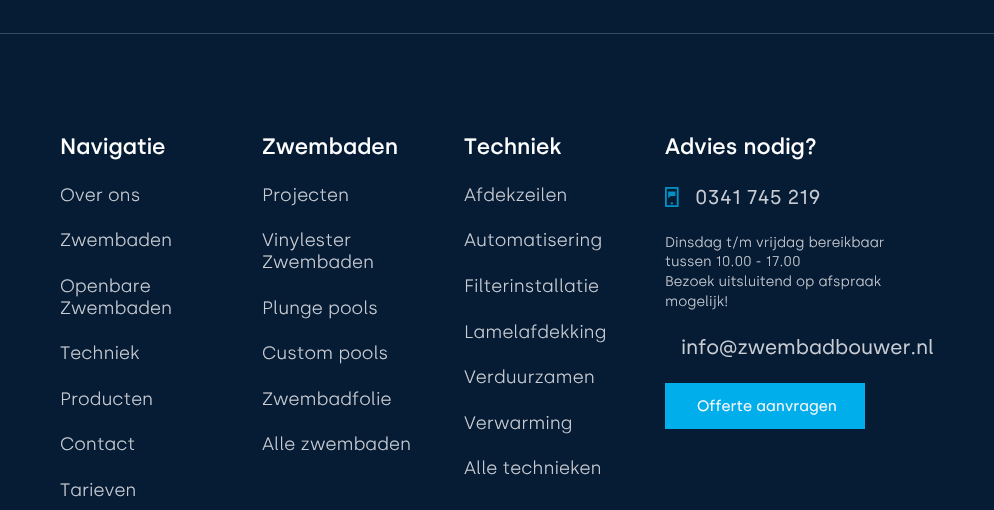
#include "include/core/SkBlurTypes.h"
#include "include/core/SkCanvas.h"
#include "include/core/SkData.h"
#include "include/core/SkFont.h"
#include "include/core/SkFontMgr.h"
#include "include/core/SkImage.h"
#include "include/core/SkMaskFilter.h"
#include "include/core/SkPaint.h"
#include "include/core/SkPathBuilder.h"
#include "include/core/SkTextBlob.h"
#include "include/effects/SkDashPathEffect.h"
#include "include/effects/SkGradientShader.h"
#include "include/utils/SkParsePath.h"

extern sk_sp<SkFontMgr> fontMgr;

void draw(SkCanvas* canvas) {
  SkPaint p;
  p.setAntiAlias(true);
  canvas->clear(SkColorSetRGB(5, 28, 52));
  p.setColor(SkColorSetRGB(55, 73, 92));
  canvas->drawRect(SkRect::MakeLTRB(0, 33, 994, 34), p);
  canvas->drawImageRect(SkImages::DeferredFromEncodedData(SkData::MakeFromFileName("images/1.png")), SkRect::MakeLTRB(665, 187, 679, 207), SkSamplingOptions());
  p.setColor(SkColorSetRGB(0, 174, 235));
  canvas->drawRect(SkRect::MakeLTRB(665, 383, 865, 429), p);
  SkFont font1(fontMgr->matchFamilyStyle("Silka", SkFontStyle(500, SkFontStyle::kNormal_Width, SkFontStyle::kUpright_Slant)), 22);
  font1.setSubpixel(true);
  p.setColor(SK_ColorWHITE);
  canvas->drawString("Navigatie", 60, 154, font1, p);
  SkFont font2(fontMgr->matchFamilyStyle("Silka", SkFontStyle(300, SkFontStyle::kNormal_Width, SkFontStyle::kUpright_Slant)), 18);
  font2.setSubpixel(true);
  p.setColor(SkColorSetRGB(203, 205, 212));
  canvas->drawString("Over ons", 60, 201, font2, p);
  canvas->drawString("Zwembaden", 60, 246, font2, p);
  canvas->drawString("Openbare", 60, 292, font2, p);
  canvas->drawString("Zwembaden", 60, 314, font2, p);
  canvas->drawString("Techniek", 60, 359, font2, p);
  canvas->drawString("Producten", 60, 405, font2, p);
  canvas->drawString("Contact", 60, 450, font2, p);
  canvas->drawString("Tarieven", 60, 496, font2, p);
  p.setColor(SK_ColorWHITE);
  canvas->drawString("Zwembaden", 262, 154, font1, p);
  p.setColor(SkColorSetRGB(203, 205, 212));
  canvas->drawString("Projecten", 262, 201, font2, p);
  canvas->drawString("Vinylester", 262, 246, font2, p);
  canvas->drawString("Zwembaden", 262, 268, font2, p);
  canvas->drawString("Plunge pools", 262, 314, font2, p);
  canvas->drawString("Custom pools", 262, 359, font2, p);
  canvas->drawString("Zwembadfolie", 262, 405, font2, p);
  canvas->drawString("Alle zwembaden", 262, 450, font2, p);
  p.setColor(SK_ColorWHITE);
  canvas->drawString("Techniek", 464, 154, font1, p);
  p.setColor(SkColorSetRGB(203, 205, 212));
  canvas->drawString("Afdekzeilen", 464, 201, font2, p);
  canvas->drawString("Automatisering", 464, 246, font2, p);
  canvas->drawString("Filterinstallatie", 464, 292, font2, p);
  canvas->drawString("Lamelafdekking", 464, 338, font2, p);
  canvas->drawString("Verduurzamen", 464, 383, font2, p);
  canvas->drawString("Verwarming", 464, 429, font2, p);
  canvas->drawString("Alle technieken", 464, 474, font2, p);
  p.setColor(SK_ColorWHITE);
  canvas->drawString("Advies nodig?", 665, 154, font1, p);
  SkFont font3(fontMgr->matchFamilyStyle("Silka", SkFontStyle::Normal()), 20);
  font3.setSubpixel(true);
  p.setColor(SkColorSetRGB(203, 205, 212));
  canvas->drawString("0341 745 219", 695, 204, font3, p);
  SkFont font4(fontMgr->matchFamilyStyle("Silka", SkFontStyle(300, SkFontStyle::kNormal_Width, SkFontStyle::kUpright_Slant)), 14);
  font4.setSubpixel(true);
  canvas->drawString("Dinsdag t/m vrijdag bereikbaar", 665, 247, font4, p);
  canvas->drawString("tussen 10.00 - 17.00", 665, 266, font4, p);
  canvas->drawString("Bezoek uitsluitend op afspraak", 665, 286, font4, p);
  canvas->drawString("mogelijk!", 665, 306, font4, p);
  canvas->drawString("info@zwembadbouwer.nl", 681, 354, font3, p);
  SkFont font5(fontMgr->matchFamilyStyle("Silka", SkFontStyle::Normal()), 15);
  font5.setSubpixel(true);
  p.setColor(SkColorSetRGB(253, 249, 252));
  canvas->drawString("Offerte aanvragen", 697, 411, font5, p);
}
